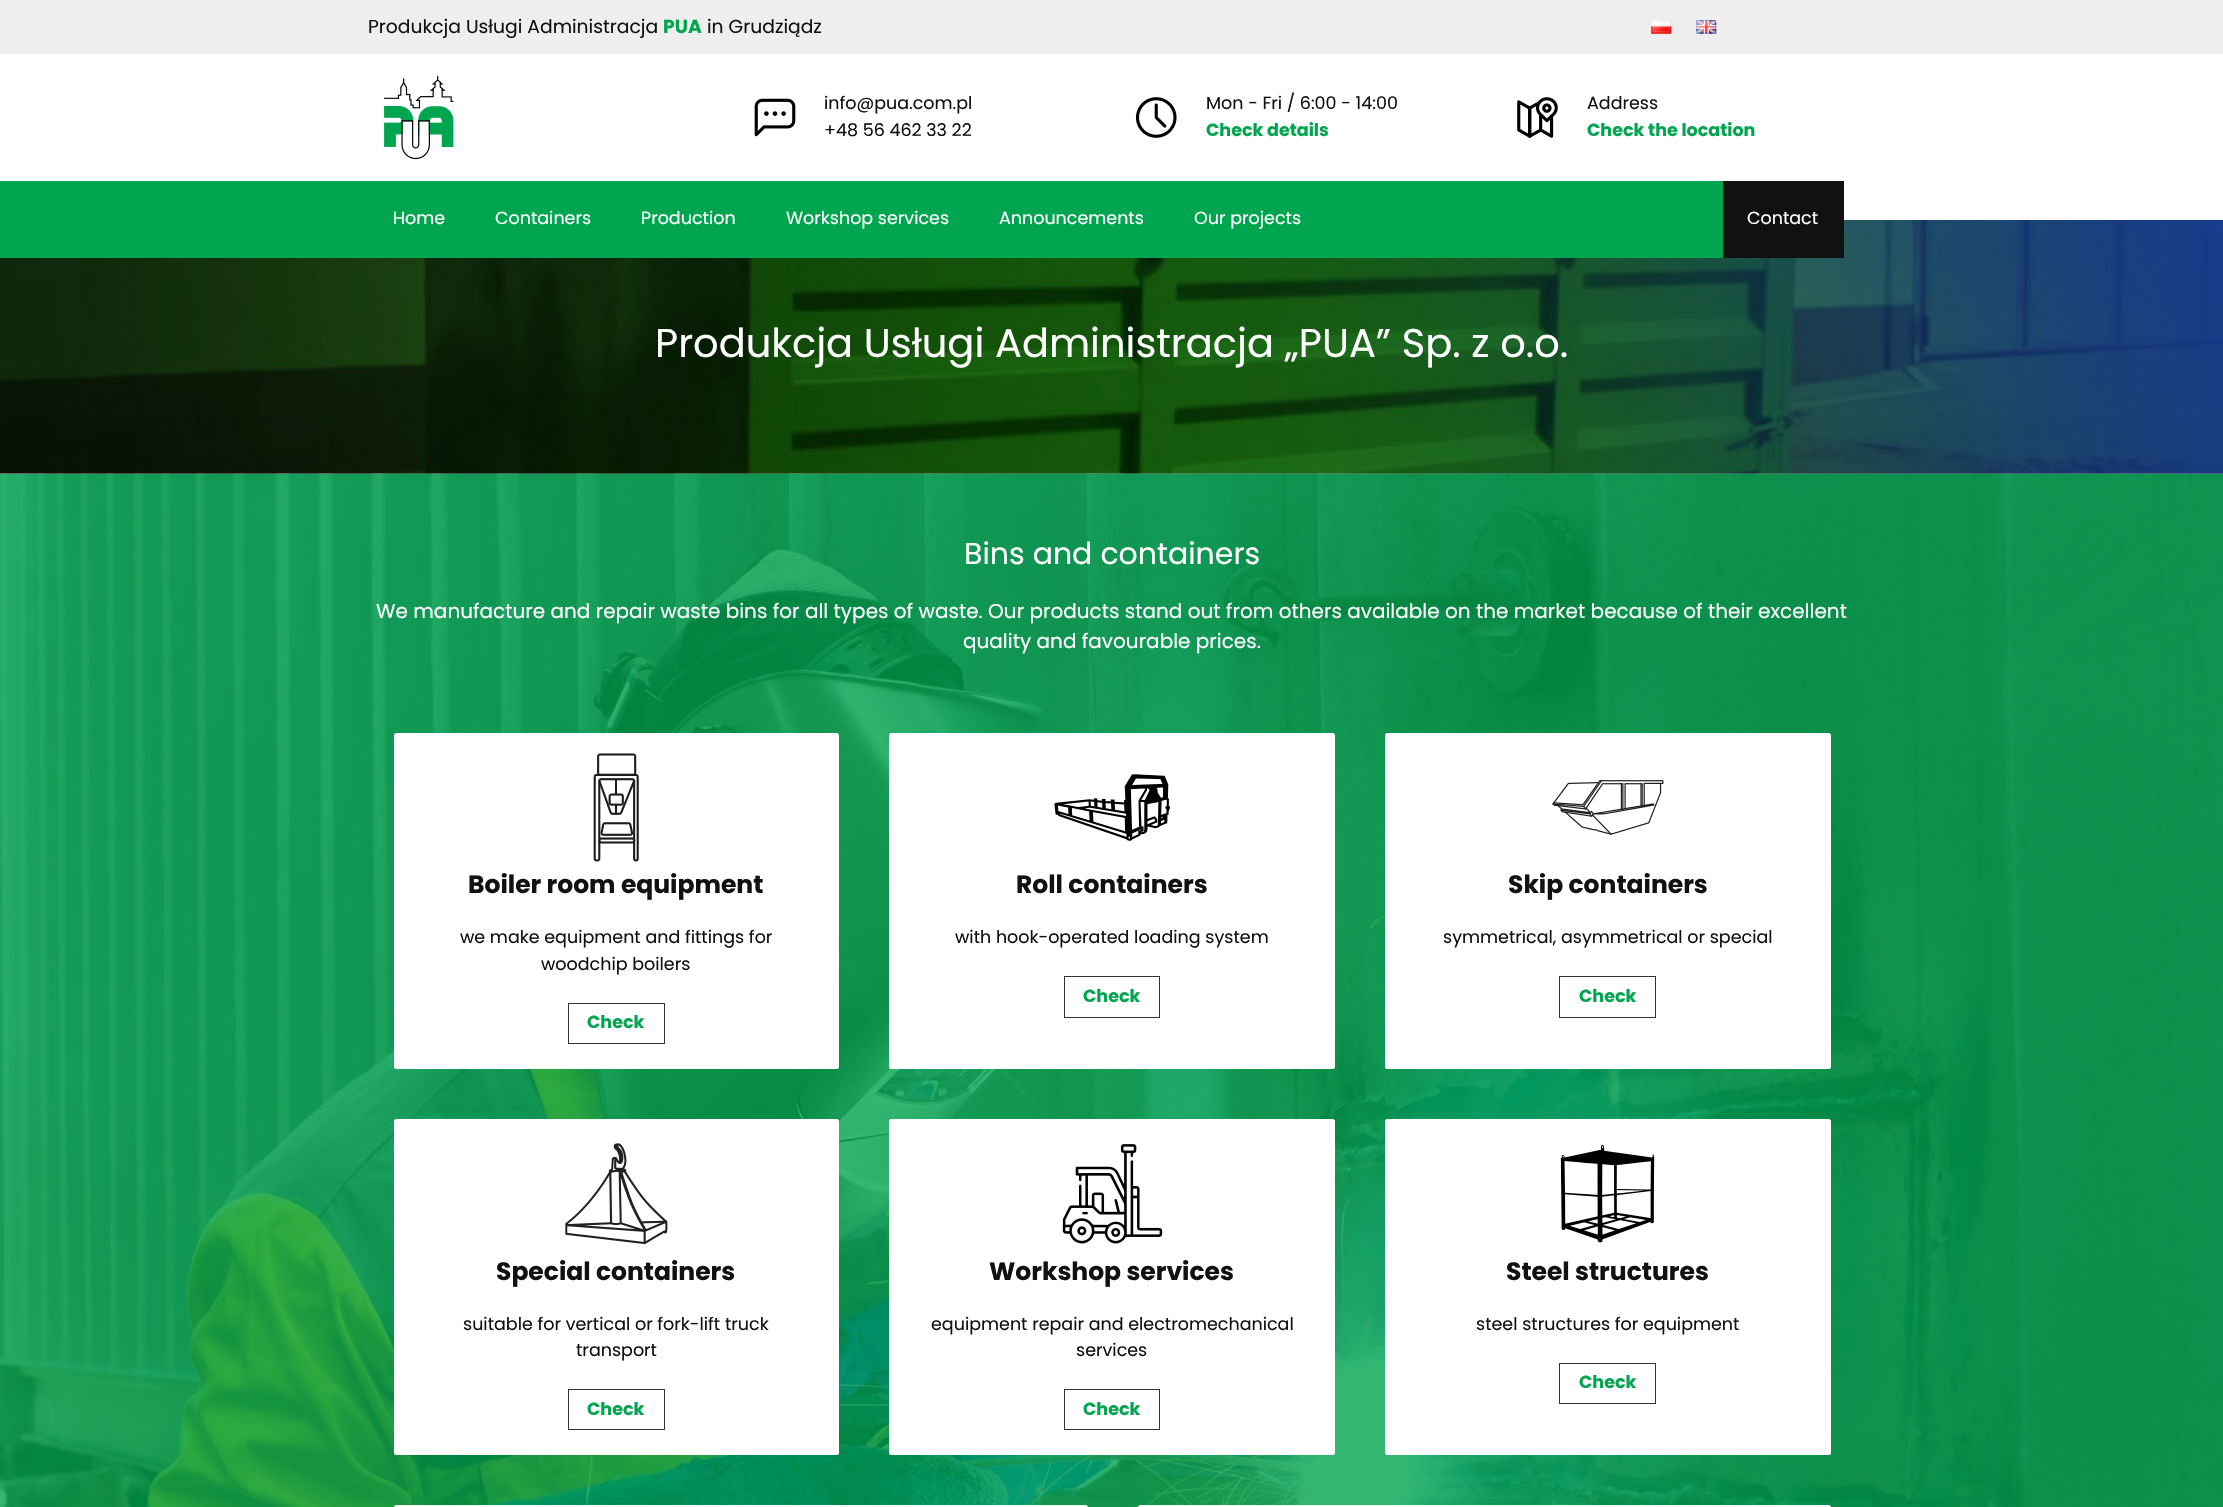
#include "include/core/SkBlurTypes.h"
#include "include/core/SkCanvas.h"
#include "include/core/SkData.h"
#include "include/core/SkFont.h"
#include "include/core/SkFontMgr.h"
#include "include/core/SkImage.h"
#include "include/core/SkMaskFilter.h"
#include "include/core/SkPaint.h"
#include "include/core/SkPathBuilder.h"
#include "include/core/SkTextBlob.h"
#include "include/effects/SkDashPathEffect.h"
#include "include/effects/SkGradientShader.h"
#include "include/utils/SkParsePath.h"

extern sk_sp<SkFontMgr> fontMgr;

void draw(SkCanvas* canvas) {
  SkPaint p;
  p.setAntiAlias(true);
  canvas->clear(SK_ColorWHITE);
  p.setColor(SkColorSetRGB(238, 238, 238));
  canvas->drawRect(SkRect::MakeLTRB(0, 0, 2223, 54), p);
  canvas->drawImageRect(SkImages::DeferredFromEncodedData(SkData::MakeFromFileName("images/1.png")), SkRect::MakeLTRB(1651, 20, 1672, 34), SkSamplingOptions());
  canvas->drawImageRect(SkImages::DeferredFromEncodedData(SkData::MakeFromFileName("images/2.png")), SkRect::MakeLTRB(1696, 20, 1717, 34), SkSamplingOptions());
  canvas->drawImageRect(SkImages::DeferredFromEncodedData(SkData::MakeFromFileName("images/3.png")), SkRect::MakeLTRB(384, 75, 454, 160), SkSamplingOptions());
  canvas->drawImageRect(SkImages::DeferredFromEncodedData(SkData::MakeFromFileName("images/4.png")), SkRect::MakeLTRB(754, 98, 796, 137), SkSamplingOptions());
  canvas->drawImageRect(SkImages::DeferredFromEncodedData(SkData::MakeFromFileName("images/5.png")), SkRect::MakeLTRB(1135, 97, 1177, 138), SkSamplingOptions());
  canvas->drawImageRect(SkImages::DeferredFromEncodedData(SkData::MakeFromFileName("images/6.png")), SkRect::MakeLTRB(1517, 97, 1558, 138), SkSamplingOptions());
  canvas->drawImageRect(SkImages::DeferredFromEncodedData(SkData::MakeFromFileName("images/7.png")), SkRect::MakeLTRB(0, 220, 2223, 474), SkSamplingOptions());
  p.setColor(SkColorSetRGB(0, 165, 79));
  canvas->drawRect(SkRect::MakeLTRB(0, 181, 1723, 258), p);
  p.setColor(SkColorSetRGB(17, 17, 17));
  canvas->drawRect(SkRect::MakeLTRB(1723, 181, 1844, 258), p);
  canvas->drawImageRect(SkImages::DeferredFromEncodedData(SkData::MakeFromFileName("images/8.png")), SkRect::MakeLTRB(0, 473, 2223, 1507), SkSamplingOptions());
  p.setColor(SK_ColorWHITE);
  canvas->drawRoundRect(SkRect::MakeLTRB(394, 733, 839, 1069), 2.5f, 2.5f, p);
  canvas->drawImageRect(SkImages::DeferredFromEncodedData(SkData::MakeFromFileName("images/9.png")), SkRect::MakeLTRB(593, 753, 639, 862), SkSamplingOptions());
  p.setStyle(SkPaint::kStroke_Style);
  p.setStrokeWidth(1);
  p.setColor(SkColorSetRGB(51, 51, 51));
  canvas->drawRect(SkRect::MakeLTRB(568.5f, 1003.5f, 664.5f, 1043.5f), p);
  p.setStyle(SkPaint::kFill_Style);
  p.setColor(SK_ColorWHITE);
  canvas->drawRoundRect(SkRect::MakeLTRB(889, 733, 1335, 1069), 2.5f, 2.5f, p);
  canvas->drawImageRect(SkImages::DeferredFromEncodedData(SkData::MakeFromFileName("images/10.png")), SkRect::MakeLTRB(1054, 774, 1171, 841), SkSamplingOptions());
  p.setStyle(SkPaint::kStroke_Style);
  p.setColor(SkColorSetRGB(51, 51, 51));
  canvas->drawRect(SkRect::MakeLTRB(1064.5f, 976.5f, 1159.5f, 1017.5f), p);
  p.setStyle(SkPaint::kFill_Style);
  p.setColor(SK_ColorWHITE);
  canvas->drawRoundRect(SkRect::MakeLTRB(1385, 733, 1831, 1069), 2.5f, 2.5f, p);
  canvas->drawImageRect(SkImages::DeferredFromEncodedData(SkData::MakeFromFileName("images/11.png")), SkRect::MakeLTRB(1552, 780, 1664, 835), SkSamplingOptions());
  p.setStyle(SkPaint::kStroke_Style);
  p.setColor(SkColorSetRGB(51, 51, 51));
  canvas->drawRect(SkRect::MakeLTRB(1559.5f, 976.5f, 1655.5f, 1017.5f), p);
  p.setStyle(SkPaint::kFill_Style);
  p.setColor(SK_ColorWHITE);
  canvas->drawRoundRect(SkRect::MakeLTRB(394, 1119, 839, 1455), 2.5f, 2.5f, p);
  canvas->drawImageRect(SkImages::DeferredFromEncodedData(SkData::MakeFromFileName("images/12.png")), SkRect::MakeLTRB(565, 1143, 668, 1245), SkSamplingOptions());
  p.setStyle(SkPaint::kStroke_Style);
  p.setColor(SkColorSetRGB(51, 51, 51));
  canvas->drawRect(SkRect::MakeLTRB(568.5f, 1389.5f, 664.5f, 1429.5f), p);
  p.setStyle(SkPaint::kFill_Style);
  p.setColor(SK_ColorWHITE);
  canvas->drawRoundRect(SkRect::MakeLTRB(889, 1119, 1335, 1455), 2.5f, 2.5f, p);
  canvas->drawImageRect(SkImages::DeferredFromEncodedData(SkData::MakeFromFileName("images/13.png")), SkRect::MakeLTRB(1062, 1144, 1163, 1244), SkSamplingOptions());
  p.setStyle(SkPaint::kStroke_Style);
  p.setColor(SkColorSetRGB(51, 51, 51));
  canvas->drawRect(SkRect::MakeLTRB(1064.5f, 1389.5f, 1159.5f, 1429.5f), p);
  p.setStyle(SkPaint::kFill_Style);
  p.setColor(SK_ColorWHITE);
  canvas->drawRoundRect(SkRect::MakeLTRB(1385, 1119, 1831, 1455), 2.5f, 2.5f, p);
  canvas->drawImageRect(SkImages::DeferredFromEncodedData(SkData::MakeFromFileName("images/14.png")), SkRect::MakeLTRB(1560, 1145, 1655, 1243), SkSamplingOptions());
  p.setStyle(SkPaint::kStroke_Style);
  p.setColor(SkColorSetRGB(51, 51, 51));
  canvas->drawRect(SkRect::MakeLTRB(1559.5f, 1363.5f, 1655.5f, 1403.5f), p);
  p.setStyle(SkPaint::kFill_Style);
  p.setColor(SK_ColorWHITE);
  canvas->drawRoundRect(SkRect::MakeLTRB(394, 1505, 1088, 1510), 2.5f, 2.5f, p);
  canvas->drawRoundRect(SkRect::MakeLTRB(1138, 1505, 1831, 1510), 2.5f, 2.5f, p);
  SkFont font1(fontMgr->matchFamilyStyle("Poppins", SkFontStyle::Normal()), 18.75f);
  font1.setSubpixel(true);
  p.setColor(SkColorSetRGB(17, 17, 17));
  canvas->drawString("Produkcja Usługi Administracja", 368, 33, font1, p);
  SkFont font2(fontMgr->matchFamilyStyle("Poppins", SkFontStyle::Bold()), 18.75f);
  font2.setSubpixel(true);
  p.setColor(SkColorSetRGB(0, 165, 79));
  canvas->drawString("PUA", 663, 33, font2, p);
  p.setColor(SkColorSetRGB(17, 17, 17));
  canvas->drawString("in Grudziądz", 707, 33, font1, p);
  SkFont font3(fontMgr->matchFamilyStyle("Poppins", SkFontStyle::Normal()), 17.5f);
  font3.setSubpixel(true);
  canvas->drawString("info@pua.com.pl", 824, 109, font3, p);
  canvas->drawString("+48 56 462 33 22", 824, 136, font3, p);
  canvas->drawString("Mon - Fri / 6:00 - 14:00", 1206, 109, font3, p);
  SkFont font4(fontMgr->matchFamilyStyle("Poppins", SkFontStyle::Bold()), 17.5f);
  font4.setSubpixel(true);
  p.setColor(SkColorSetRGB(0, 165, 79));
  canvas->drawString("Check details", 1206, 136, font4, p);
  p.setColor(SkColorSetRGB(17, 17, 17));
  canvas->drawString("Address", 1587, 109, font3, p);
  p.setColor(SkColorSetRGB(0, 165, 79));
  canvas->drawString("Check the location", 1587, 136, font4, p);
  p.setColor(SK_ColorWHITE);
  canvas->drawString("Home", 393, 224, font3, p);
  canvas->drawString("Containers", 495, 224, font3, p);
  canvas->drawString("Production", 641, 224, font3, p);
  canvas->drawString("Workshop services", 786, 224, font3, p);
  canvas->drawString("Announcements", 999, 224, font3, p);
  canvas->drawString("Our projects", 1194, 224, font3, p);
  canvas->drawString("Contact", 1747, 224, font3, p);
  SkFont font5(fontMgr->matchFamilyStyle("Poppins", SkFontStyle::Normal()), 40);
  font5.setSubpixel(true);
  canvas->drawString("Produkcja Usługi Administracja „PUA” Sp. z o.o.", 655, 357, font5, p);
  SkFont font6(fontMgr->matchFamilyStyle("Poppins", SkFontStyle::Normal()), 30);
  font6.setSubpixel(true);
  canvas->drawString("Bins and containers", 964, 564, font6, p);
  SkFont font7(fontMgr->matchFamilyStyle("Poppins", SkFontStyle::Normal()), 20);
  font7.setSubpixel(true);
  canvas->drawString("We manufacture and repair waste bins for all types of waste. Our products stand out from others available on the market because of their excellent", 376, 618, font7, p);
  canvas->drawString("quality and favourable prices.", 963, 648, font7, p);
  SkFont font8(fontMgr->matchFamilyStyle("Poppins", SkFontStyle::Bold()), 25);
  font8.setSubpixel(true);
  p.setColor(SkColorSetRGB(17, 17, 17));
  canvas->drawString("Boiler room equipment", 468, 893, font8, p);
  canvas->drawString("we make equipment and fittings for", 460, 943, font3, p);
  canvas->drawString("woodchip boilers", 541, 970, font3, p);
  p.setColor(SkColorSetRGB(0, 165, 79));
  canvas->drawString("Check", 587, 1028, font4, p);
  p.setColor(SkColorSetRGB(17, 17, 17));
  canvas->drawString("Roll containers", 1016, 893, font8, p);
  canvas->drawString("with hook-operated loading system", 955, 943, font3, p);
  p.setColor(SkColorSetRGB(0, 165, 79));
  canvas->drawString("Check", 1083, 1002, font4, p);
  p.setColor(SkColorSetRGB(17, 17, 17));
  canvas->drawString("Skip containers", 1508, 893, font8, p);
  canvas->drawString("symmetrical, asymmetrical or special", 1443, 943, font3, p);
  p.setColor(SkColorSetRGB(0, 165, 79));
  canvas->drawString("Check", 1579, 1002, font4, p);
  p.setColor(SkColorSetRGB(17, 17, 17));
  canvas->drawString("Special containers", 496, 1280, font8, p);
  canvas->drawString("suitable for vertical or fork-lift truck", 463, 1330, font3, p);
  canvas->drawString("transport", 576, 1356, font3, p);
  p.setColor(SkColorSetRGB(0, 165, 79));
  canvas->drawString("Check", 587, 1415, font4, p);
  p.setColor(SkColorSetRGB(17, 17, 17));
  canvas->drawString("Workshop services", 989, 1280, font8, p);
  canvas->drawString("equipment repair and electromechanical", 931, 1330, font3, p);
  canvas->drawString("services", 1076, 1356, font3, p);
  p.setColor(SkColorSetRGB(0, 165, 79));
  canvas->drawString("Check", 1083, 1415, font4, p);
  p.setColor(SkColorSetRGB(17, 17, 17));
  canvas->drawString("Steel structures", 1506, 1280, font8, p);
  canvas->drawString("steel structures for equipment", 1476, 1330, font3, p);
  p.setColor(SkColorSetRGB(0, 165, 79));
  canvas->drawString("Check", 1579, 1388, font4, p);
}
